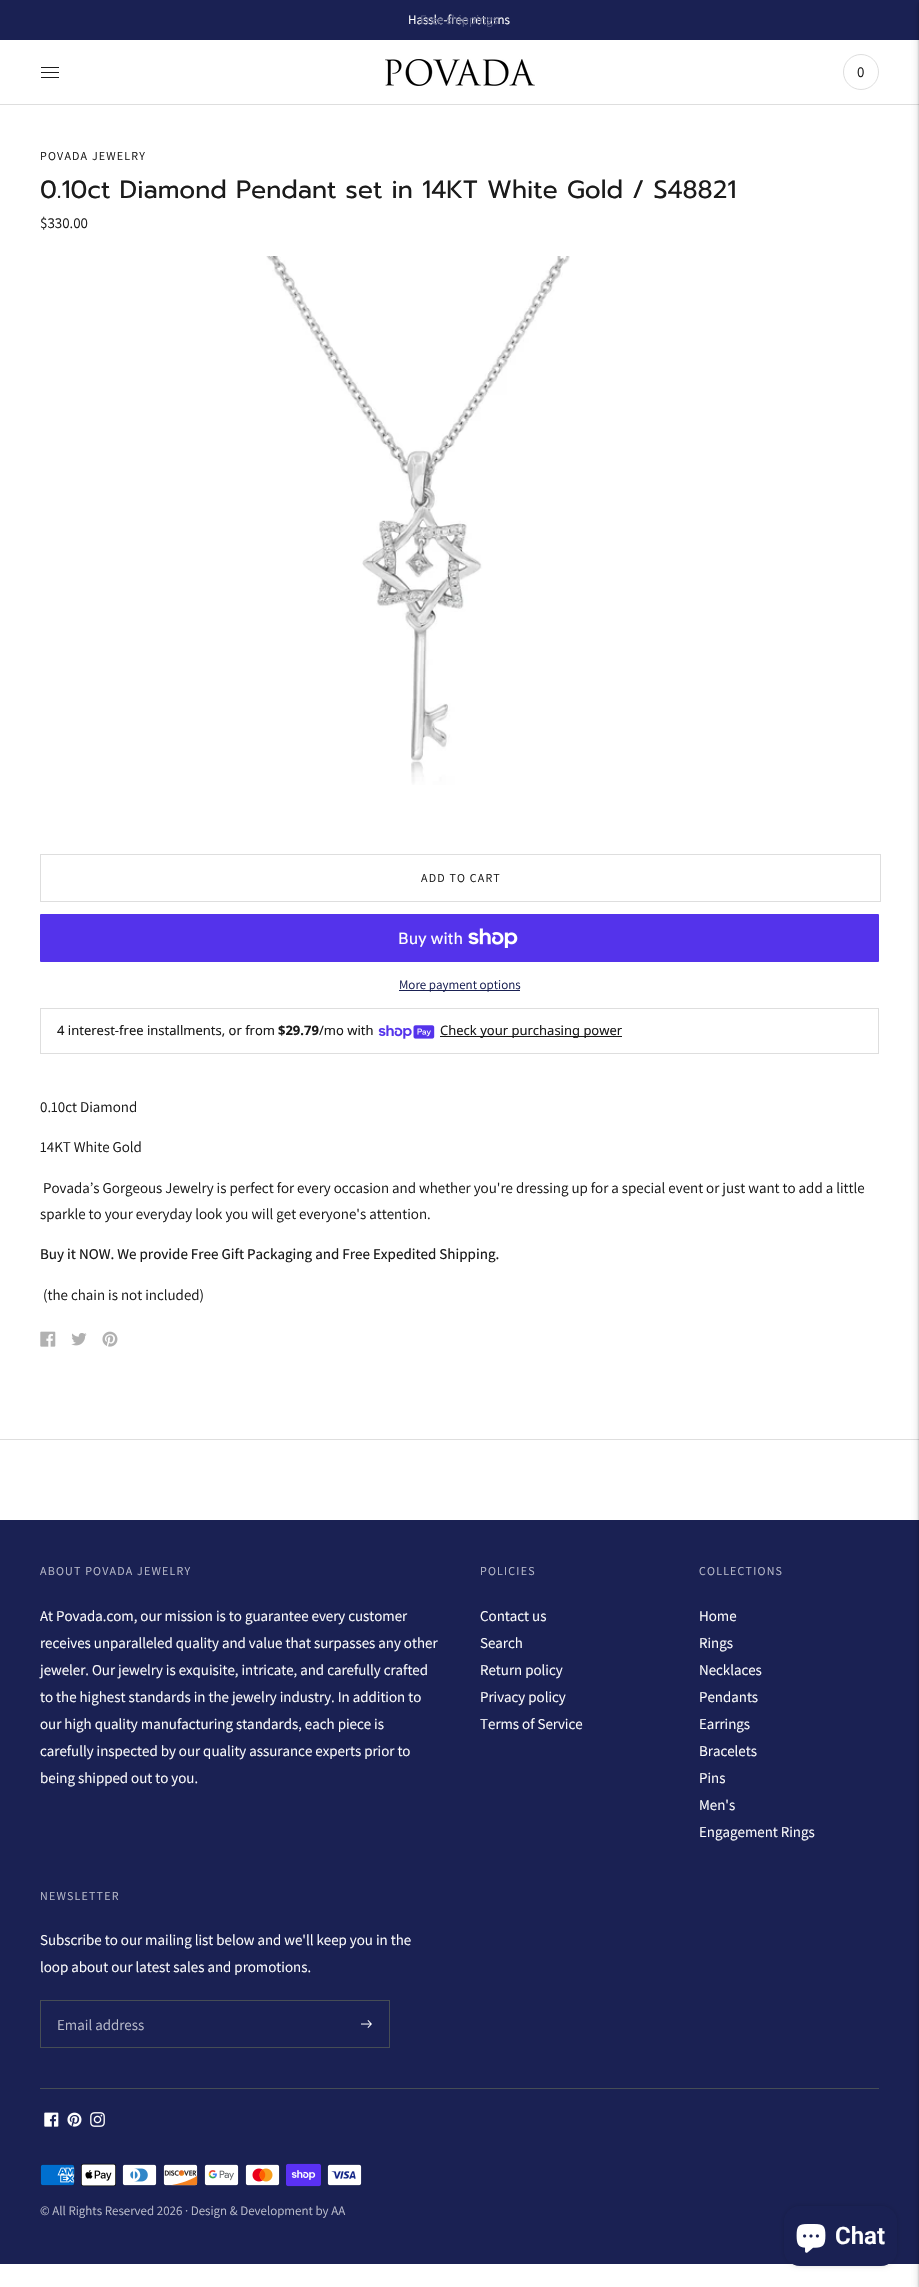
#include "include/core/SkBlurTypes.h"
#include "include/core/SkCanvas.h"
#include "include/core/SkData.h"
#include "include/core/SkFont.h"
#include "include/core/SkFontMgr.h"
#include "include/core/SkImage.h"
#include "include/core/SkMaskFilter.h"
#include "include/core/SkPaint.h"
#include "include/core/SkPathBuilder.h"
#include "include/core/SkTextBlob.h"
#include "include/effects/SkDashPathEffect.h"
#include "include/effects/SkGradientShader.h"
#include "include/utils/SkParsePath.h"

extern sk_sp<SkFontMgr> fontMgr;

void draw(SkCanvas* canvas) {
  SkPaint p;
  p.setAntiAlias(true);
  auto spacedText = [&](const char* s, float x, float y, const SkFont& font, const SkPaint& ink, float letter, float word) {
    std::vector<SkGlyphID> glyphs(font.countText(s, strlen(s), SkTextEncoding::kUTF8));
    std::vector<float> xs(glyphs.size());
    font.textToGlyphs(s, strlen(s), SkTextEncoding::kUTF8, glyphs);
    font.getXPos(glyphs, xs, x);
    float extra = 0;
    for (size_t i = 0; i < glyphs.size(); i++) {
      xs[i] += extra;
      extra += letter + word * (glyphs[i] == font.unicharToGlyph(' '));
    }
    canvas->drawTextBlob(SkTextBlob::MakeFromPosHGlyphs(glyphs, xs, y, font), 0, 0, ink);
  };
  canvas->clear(SK_ColorWHITE);
  p.setColor(SkColorSetRGB(26, 33, 83));
  canvas->drawRect(SkRect::MakeLTRB(0, 0, 919, 40), p);
  p.setColor(SkColorSetRGB(222, 222, 222));
  canvas->drawRect(SkRect::MakeLTRB(0, 104, 919, 105), p);
  p.setStyle(SkPaint::kStroke_Style);
  p.setStrokeWidth(1);
  p.setColor(SkColorSetRGB(27, 27, 27));
  canvas->drawPath(SkPathBuilder().moveTo(41, 67.5f).lineTo(59, 67.5f).moveTo(41, 72.5f).lineTo(59, 72.5f).moveTo(41, 77.5f).lineTo(59, 77.5f).detach(), p);
  canvas->drawImageRect(SkImages::DeferredFromEncodedData(SkData::MakeFromFileName("images/1.png")), SkRect::MakeLTRB(385, 59, 535, 86), SkSamplingOptions());
  p.setColor(SkColorSetRGB(222, 222, 222));
  canvas->drawCircle(861, 72, 17.5f, p);
  p.setStyle(SkPaint::kFill_Style);
  canvas->drawRect(SkRect::MakeLTRB(0, 1439, 919, 1440), p);
  p.setColor(SkColorSetRGB(26, 33, 83));
  canvas->drawRect(SkRect::MakeLTRB(0, 1520, 919, 2264), p);
  p.setColor(SkColorSetARGB(26, 0, 0, 0));
  p.setMaskFilter(SkMaskFilter::MakeBlur(kNormal_SkBlurStyle, 3));
  canvas->drawRect(SkRect::MakeLTRB(919, 4, 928, 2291), p);
  p.setMaskFilter(nullptr);
  p.setColor(SkColorSetARGB(38, 0, 0, 0));
  p.setMaskFilter(SkMaskFilter::MakeBlur(kNormal_SkBlurStyle, 1));
  canvas->drawRect(SkRect::MakeLTRB(919, 2, 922, 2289), p);
  p.setMaskFilter(nullptr);
  p.setColor(SkColorSetARGB(26, 0, 0, 0));
  p.setMaskFilter(SkMaskFilter::MakeBlur(kNormal_SkBlurStyle, 3));
  canvas->drawRect(SkRect::MakeLTRB(919, 4, 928, 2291), p);
  p.setMaskFilter(nullptr);
  p.setColor(SkColorSetARGB(38, 0, 0, 0));
  p.setMaskFilter(SkMaskFilter::MakeBlur(kNormal_SkBlurStyle, 1));
  canvas->drawRect(SkRect::MakeLTRB(919, 2, 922, 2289), p);
  p.setMaskFilter(nullptr);
  canvas->drawImageRect(SkImages::DeferredFromEncodedData(SkData::MakeFromFileName("images/2.png")), SkRect::MakeLTRB(266, 256, 570, 785), SkSamplingOptions());
  p.setStyle(SkPaint::kStroke_Style);
  p.setColor(SkColorSetRGB(222, 222, 222));
  canvas->drawRect(SkRect::MakeLTRB(40.5f, 854.5f, 880.5f, 901.5f), p);
  p.setStyle(SkPaint::kFill_Style);
  p.setColor(SkColorSetRGB(84, 51, 235));
  canvas->drawRoundRect(SkRect::MakeLTRB(40, 914, 879, 962), 1, 1, p);
  canvas->drawImageRect(SkImages::DeferredFromEncodedData(SkData::MakeFromFileName("images/3.png")), SkRect::MakeLTRB(468, 928, 518, 948), SkSamplingOptions());
  p.setColor(SkColorSetRGB(26, 33, 83));
  canvas->drawRect(SkRect::MakeLTRB(399, 990, 520, 991), p);
  p.setStyle(SkPaint::kStroke_Style);
  p.setColor(SkColorSetRGB(222, 222, 222));
  canvas->drawRect(SkRect::MakeLTRB(40.5f, 1008.5f, 878.5f, 1053.5f), p);
  canvas->drawImageRect(SkImages::DeferredFromEncodedData(SkData::MakeFromFileName("images/4.png")), SkRect::MakeLTRB(378, 1025, 435, 1039), SkSamplingOptions());
  p.setStyle(SkPaint::kFill_Style);
  p.setColor(SkColorSetRGB(27, 27, 27));
  canvas->drawRect(SkRect::MakeLTRB(440, 1036, 622, 1037), p);
  canvas->drawImageRect(SkImages::DeferredFromEncodedData(SkData::MakeFromFileName("images/5.png")), SkRect::MakeLTRB(40, 1331, 56, 1347), SkSamplingOptions());
  canvas->drawImageRect(SkImages::DeferredFromEncodedData(SkData::MakeFromFileName("images/6.png")), SkRect::MakeLTRB(71, 1333, 87, 1346), SkSamplingOptions());
  canvas->drawImageRect(SkImages::DeferredFromEncodedData(SkData::MakeFromFileName("images/7.png")), SkRect::MakeLTRB(102, 1331, 118, 1347), SkSamplingOptions());
  p.setStyle(SkPaint::kStroke_Style);
  p.setColor(SkColorSetRGB(70, 77, 85));
  canvas->drawRect(SkRect::MakeLTRB(40.5f, 2000.5f, 389.5f, 2047.5f), p);
  canvas->drawImageRect(SkImages::DeferredFromEncodedData(SkData::MakeFromFileName("images/8.png")), SkRect::MakeLTRB(361, 2020, 372, 2028), SkSamplingOptions());
  p.setStyle(SkPaint::kFill_Style);
  canvas->drawRect(SkRect::MakeLTRB(40, 2088, 879, 2089), p);
  canvas->drawImageRect(SkImages::DeferredFromEncodedData(SkData::MakeFromFileName("images/9.png")), SkRect::MakeLTRB(44, 2112, 59, 2127), SkSamplingOptions());
  canvas->drawImageRect(SkImages::DeferredFromEncodedData(SkData::MakeFromFileName("images/10.png")), SkRect::MakeLTRB(67, 2112, 82, 2127), SkSamplingOptions());
  canvas->drawImageRect(SkImages::DeferredFromEncodedData(SkData::MakeFromFileName("images/11.png")), SkRect::MakeLTRB(90, 2112, 105, 2127), SkSamplingOptions());
  canvas->drawImageRect(SkImages::DeferredFromEncodedData(SkData::MakeFromFileName("images/12.png")), SkRect::MakeLTRB(40, 2164, 75, 2186), SkSamplingOptions());
  canvas->drawImageRect(SkImages::DeferredFromEncodedData(SkData::MakeFromFileName("images/13.png")), SkRect::MakeLTRB(81, 2163, 116, 2187), SkSamplingOptions());
  canvas->drawImageRect(SkImages::DeferredFromEncodedData(SkData::MakeFromFileName("images/14.png")), SkRect::MakeLTRB(122, 2164, 157, 2186), SkSamplingOptions());
  canvas->drawImageRect(SkImages::DeferredFromEncodedData(SkData::MakeFromFileName("images/15.png")), SkRect::MakeLTRB(163, 2164, 198, 2186), SkSamplingOptions());
  canvas->drawImageRect(SkImages::DeferredFromEncodedData(SkData::MakeFromFileName("images/16.png")), SkRect::MakeLTRB(204, 2164, 239, 2186), SkSamplingOptions());
  canvas->drawImageRect(SkImages::DeferredFromEncodedData(SkData::MakeFromFileName("images/17.png")), SkRect::MakeLTRB(245, 2164, 280, 2186), SkSamplingOptions());
  canvas->drawImageRect(SkImages::DeferredFromEncodedData(SkData::MakeFromFileName("images/18.png")), SkRect::MakeLTRB(286, 2163, 321, 2187), SkSamplingOptions());
  canvas->drawImageRect(SkImages::DeferredFromEncodedData(SkData::MakeFromFileName("images/19.png")), SkRect::MakeLTRB(327, 2164, 362, 2186), SkSamplingOptions());
  p.setColor(SkColorSetARGB(38, 0, 0, 0));
  p.setMaskFilter(SkMaskFilter::MakeBlur(kNormal_SkBlurStyle, 2.5f));
  canvas->drawRoundRect(SkRect::MakeLTRB(784, 2206, 897, 2266), 16, 16, p);
  p.setMaskFilter(nullptr);
  p.setColor(SkColorSetRGB(26, 33, 83));
  canvas->drawRoundRect(SkRect::MakeLTRB(784, 2206, 897, 2266), 16, 16, p);
  canvas->drawImageRect(SkImages::DeferredFromEncodedData(SkData::MakeFromFileName("images/20.png")), SkRect::MakeLTRB(796, 2224, 826, 2253), SkSamplingOptions());
  SkFont font1(fontMgr->matchFamilyStyle("Assistant", SkFontStyle::Normal()), 13);
  font1.setSubpixel(true);
  p.setColor(SK_ColorWHITE);
  canvas->drawString("Hassle-free returns", 408, 24, font1, p);
  p.setColor(SkColorSetRGB(87, 92, 129));
  canvas->drawString("Free shippings", 420, 24, font1, p);
  SkFont font2(fontMgr->matchFamilyStyle("Assistant", SkFontStyle::Normal()), 15);
  font2.setSubpixel(true);
  p.setColor(SkColorSetRGB(27, 27, 27));
  canvas->drawString("0", 857, 77, font2, p);
  SkFont font3(fontMgr->matchFamilyStyle("Assistant", SkFontStyle::Normal()), 12);
  font3.setSubpixel(true);
  spacedText("POVADA JEWELRY", 40, 160, font3, p, 1.2f, 0);
  SkFont font4(fontMgr->matchFamilyStyle("Prompt", SkFontStyle::Normal()), 25);
  font4.setSubpixel(true);
  canvas->drawString("0.10ct Diamond Pendant set in 14KT White Gold / S48821", 40, 198, font4, p);
  canvas->drawString("$330.00", 40, 228, font2, p);
  spacedText("ADD TO CART", 421, 882, font3, p, 1.2f, 0);
  SkFont font5(fontMgr->matchFamilyStyle("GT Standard", SkFontStyle::Normal()), 16);
  font5.setSubpixel(true);
  p.setColor(SK_ColorWHITE);
  canvas->drawString("Buy with", 398, 944, font5, p);
  p.setColor(SkColorSetRGB(26, 33, 83));
  canvas->drawString("More payment options", 399, 989, font1, p);
  SkFont font6(fontMgr->matchFamilyStyle("Noto Sans", SkFontStyle::Normal()), 13);
  font6.setSubpixel(true);
  p.setColor(SkColorSetRGB(27, 27, 27));
  canvas->drawString("4 interest-free installments, or from", 57, 1035, font6, p);
  SkFont font7(fontMgr->matchFamilyStyle("Noto Sans", SkFontStyle::Bold()), 13);
  font7.setSubpixel(true);
  canvas->drawString("$29.79", 278, 1035, font7, p);
  canvas->drawString("/mo with", 319, 1035, font6, p);
  canvas->drawString("Check your purchasing power", 440, 1035, font6, p);
  canvas->drawString("0.10ct Diamond", 40, 1112, font2, p);
  canvas->drawString("14KT White Gold", 40, 1152, font2, p);
  canvas->drawString("Povada’s Gorgeous Jewelry is perfect for every occasion and whether you're dressing up for a special event or just want to add a little", 43, 1193, font2, p);
  canvas->drawString("sparkle to your everyday look you will get everyone's attention.", 40, 1219, font2, p);
  SkFont font8(fontMgr->matchFamilyStyle("Assistant", SkFontStyle(500, SkFontStyle::kNormal_Width, SkFontStyle::kUpright_Slant)), 15);
  font8.setSubpixel(true);
  canvas->drawString("Buy it NOW. We provide Free Gift Packaging and Free Expedited Shipping.", 40, 1259, font8, p);
  canvas->drawString("(the chain is not included)", 43, 1300, font2, p);
  p.setColor(SkColorSetRGB(186, 188, 203));
  spacedText("ABOUT POVADA JEWELRY", 40, 1575, font3, p, 1.2f, 0);
  p.setColor(SK_ColorWHITE);
  canvas->drawString("At Povada.com, our mission is to guarantee every customer", 40, 1621, font2, p);
  canvas->drawString("receives unparalleled quality and value that surpasses any other", 40, 1648, font2, p);
  canvas->drawString("jeweler. Our jewelry is exquisite, intricate, and carefully crafted", 40, 1675, font2, p);
  canvas->drawString("to the highest standards in the jewelry industry. In addition to", 40, 1702, font2, p);
  canvas->drawString("our high quality manufacturing standards, each piece is", 40, 1729, font2, p);
  canvas->drawString("carefully inspected by our quality assurance experts prior to", 40, 1756, font2, p);
  canvas->drawString("being shipped out to you.", 40, 1783, font2, p);
  p.setColor(SkColorSetRGB(186, 188, 203));
  spacedText("POLICIES", 480, 1575, font3, p, 1.2f, 0);
  p.setColor(SK_ColorWHITE);
  canvas->drawString("Contact us", 480, 1621, font2, p);
  canvas->drawString("Search", 480, 1648, font2, p);
  canvas->drawString("Return policy", 480, 1675, font2, p);
  canvas->drawString("Privacy policy", 480, 1702, font2, p);
  canvas->drawString("Terms of Service", 480, 1729, font2, p);
  p.setColor(SkColorSetRGB(186, 188, 203));
  spacedText("COLLECTIONS", 699, 1575, font3, p, 1.2f, 0);
  p.setColor(SK_ColorWHITE);
  canvas->drawString("Home", 699, 1621, font2, p);
  canvas->drawString("Rings", 699, 1648, font2, p);
  canvas->drawString("Necklaces", 699, 1675, font2, p);
  canvas->drawString("Pendants", 699, 1702, font2, p);
  canvas->drawString("Earrings", 699, 1729, font2, p);
  canvas->drawString("Bracelets", 699, 1756, font2, p);
  canvas->drawString("Pins", 699, 1783, font2, p);
  canvas->drawString("Men's", 699, 1810, font2, p);
  canvas->drawString("Engagement Rings", 699, 1837, font2, p);
  p.setColor(SkColorSetRGB(186, 188, 203));
  spacedText("NEWSLETTER", 40, 1900, font3, p, 1.2f, 0);
  p.setColor(SK_ColorWHITE);
  canvas->drawString("Subscribe to our mailing list below and we'll keep you in the", 40, 1945, font2, p);
  canvas->drawString("loop about our latest sales and promotions.", 40, 1972, font2, p);
  p.setColor(SkColorSetRGB(186, 188, 203));
  canvas->drawString("Email address", 57, 2030, font2, p);
  canvas->drawString("© All Rights Reserved 2026 · Design & Development by AA", 40, 2215, font1, p);
  SkFont font9(fontMgr->matchFamilyStyle("Roboto", SkFontStyle(600, SkFontStyle::kNormal_Width, SkFontStyle::kUpright_Slant)), 24);
  font9.setSubpixel(true);
  p.setColor(SK_ColorWHITE);
  canvas->drawString("Chat", 835, 2244, font9, p);
}
